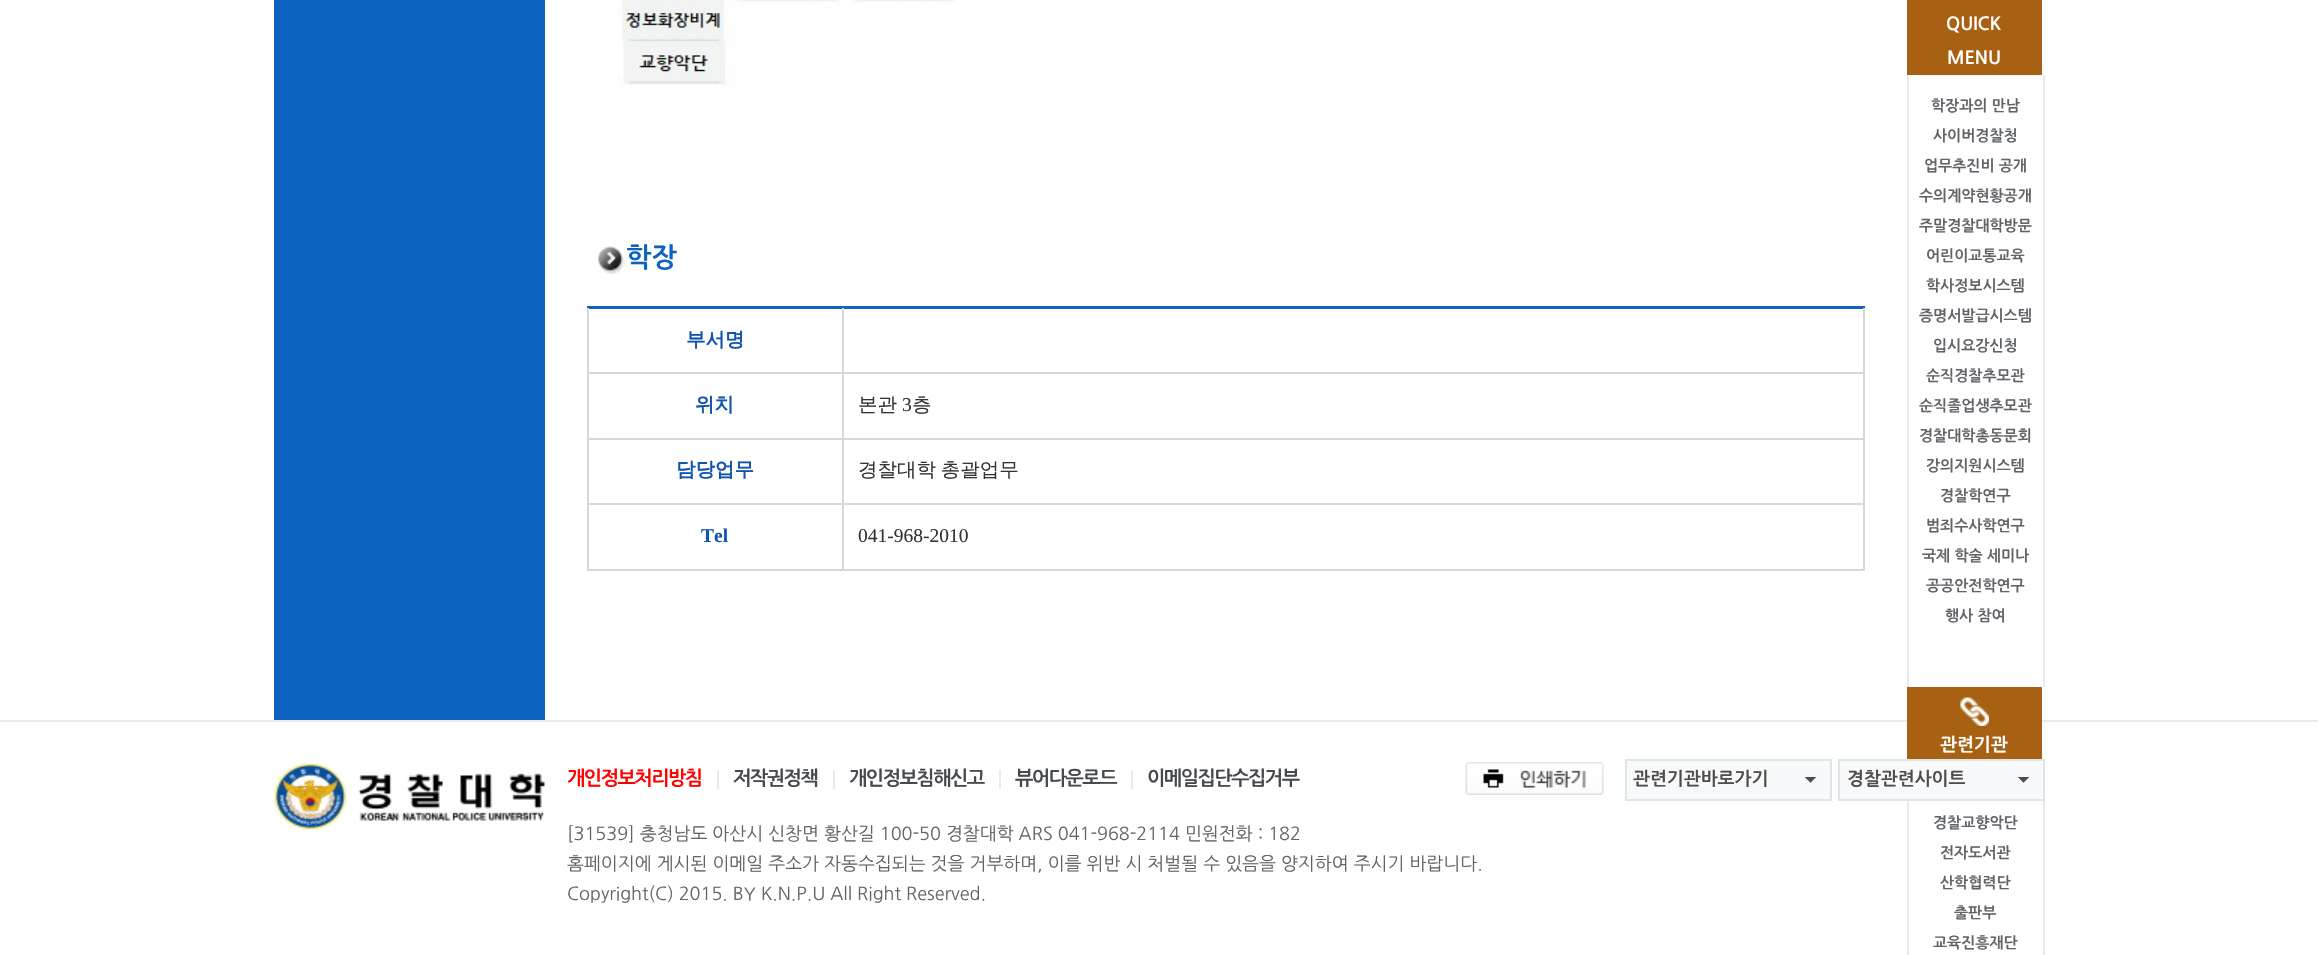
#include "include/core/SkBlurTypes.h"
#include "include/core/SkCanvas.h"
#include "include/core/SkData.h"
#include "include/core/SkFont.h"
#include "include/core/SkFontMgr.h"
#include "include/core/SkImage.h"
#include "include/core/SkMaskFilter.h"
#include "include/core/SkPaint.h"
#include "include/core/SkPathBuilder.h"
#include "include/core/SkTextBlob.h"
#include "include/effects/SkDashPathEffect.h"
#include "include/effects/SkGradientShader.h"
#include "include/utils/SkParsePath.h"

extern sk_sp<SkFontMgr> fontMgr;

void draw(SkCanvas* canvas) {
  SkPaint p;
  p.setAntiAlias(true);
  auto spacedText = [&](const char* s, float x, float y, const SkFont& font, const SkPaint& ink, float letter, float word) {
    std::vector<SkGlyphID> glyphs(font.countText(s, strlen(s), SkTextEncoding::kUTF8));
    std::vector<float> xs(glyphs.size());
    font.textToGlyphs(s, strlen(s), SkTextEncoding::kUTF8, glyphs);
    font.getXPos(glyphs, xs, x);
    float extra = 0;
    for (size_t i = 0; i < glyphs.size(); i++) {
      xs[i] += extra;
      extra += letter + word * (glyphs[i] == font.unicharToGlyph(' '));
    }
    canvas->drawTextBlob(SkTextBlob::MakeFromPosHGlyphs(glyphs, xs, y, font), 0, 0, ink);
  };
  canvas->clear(SK_ColorWHITE);
  p.setColor(SkColorSetRGB(14, 98, 193));
  canvas->drawRect(SkRect::MakeLTRB(274, 0, 545, 720), p);
  canvas->drawImageRect(SkImages::DeferredFromEncodedData(SkData::MakeFromFileName("images/1.png")), SkRect::MakeLTRB(618, 0, 955, 88), SkSamplingOptions());
  canvas->drawImageRect(SkImages::DeferredFromEncodedData(SkData::MakeFromFileName("images/2.png")), SkRect::MakeLTRB(598, 246, 625, 275), SkSamplingOptions());
  canvas->drawRect(SkRect::MakeLTRB(587, 306, 1865, 309), p);
  p.setColor(SkColorSetRGB(216, 216, 216));
  canvas->drawRect(SkRect::MakeLTRB(842, 372, 1865, 374), p);
  canvas->drawRect(SkRect::MakeLTRB(842, 438, 1865, 440), p);
  canvas->drawRect(SkRect::MakeLTRB(842, 503, 1865, 505), p);
  canvas->drawRect(SkRect::MakeLTRB(1863, 503, 1865, 570), p);
  canvas->drawRect(SkRect::MakeLTRB(842, 569, 1865, 571), p);
  canvas->drawRect(SkRect::MakeLTRB(842, 503, 844, 570), p);
  canvas->drawRect(SkRect::MakeLTRB(587, 503, 843, 505), p);
  canvas->drawRect(SkRect::MakeLTRB(842, 438, 844, 504), p);
  canvas->drawRect(SkRect::MakeLTRB(587, 438, 843, 440), p);
  canvas->drawRect(SkRect::MakeLTRB(842, 372, 844, 440), p);
  canvas->drawRect(SkRect::MakeLTRB(587, 372, 843, 374), p);
  canvas->drawRect(SkRect::MakeLTRB(842, 308, 844, 374), p);
  canvas->drawRect(SkRect::MakeLTRB(587, 569, 843, 571), p);
  canvas->drawRect(SkRect::MakeLTRB(587, 503, 589, 570), p);
  canvas->drawRect(SkRect::MakeLTRB(587, 438, 589, 504), p);
  canvas->drawRect(SkRect::MakeLTRB(587, 308, 589, 440), p);
  canvas->drawRect(SkRect::MakeLTRB(1863, 438, 1865, 504), p);
  canvas->drawRect(SkRect::MakeLTRB(1863, 308, 1865, 440), p);
  p.setColor(SkColorSetRGB(168, 96, 18));
  canvas->drawRect(SkRect::MakeLTRB(1907, 0, 2042, 75), p);
  p.setColor(SkColorSetRGB(231, 234, 239));
  canvas->drawRect(SkRect::MakeLTRB(2043, 75, 2045, 687), p);
  canvas->drawRect(SkRect::MakeLTRB(1907, 75, 1909, 687), p);
  canvas->drawRect(SkRect::MakeLTRB(0, 720, 2318, 722), p);
  p.setColor(SkColorSetRGB(168, 96, 18));
  canvas->drawRect(SkRect::MakeLTRB(1907, 687, 2042, 759), p);
  canvas->drawImageRect(SkImages::DeferredFromEncodedData(SkData::MakeFromFileName("images/3.png")), SkRect::MakeLTRB(1960, 697, 1989, 726), SkSamplingOptions());
  p.setColor(SkColorSetRGB(231, 234, 239));
  canvas->drawRect(SkRect::MakeLTRB(2043, 801, 2045, 955), p);
  canvas->drawRect(SkRect::MakeLTRB(1907, 801, 1909, 955), p);
  canvas->drawImageRect(SkImages::DeferredFromEncodedData(SkData::MakeFromFileName("images/4.png")), SkRect::MakeLTRB(274, 763, 545, 830), SkSamplingOptions());
  canvas->drawRect(SkRect::MakeLTRB(717, 770, 719, 789), p);
  canvas->drawRect(SkRect::MakeLTRB(833, 770, 835, 789), p);
  canvas->drawRect(SkRect::MakeLTRB(999, 770, 1001, 789), p);
  canvas->drawRect(SkRect::MakeLTRB(1131, 770, 1133, 789), p);
  canvas->drawImageRect(SkImages::DeferredFromEncodedData(SkData::MakeFromFileName("images/5.png")), SkRect::MakeLTRB(1465, 762, 1604, 795), SkSamplingOptions());
  p.setColor(SkColorSetRGB(248, 249, 250));
  canvas->drawRect(SkRect::MakeLTRB(1627, 761, 1830, 799), p);
  p.setColor(SkColorSetRGB(78, 78, 78));
  canvas->drawPath(SkPathBuilder().moveTo(1804.5f, 777).lineTo(1816.5f, 777).lineTo(1810.5f, 783).close().detach(), p);
  p.setColor(SkColorSetRGB(248, 249, 250));
  canvas->drawPath(SkPathBuilder().moveTo(1816.5f, 777).lineTo(1816.5f, 783).lineTo(1810.5f, 783).close().detach(), p);
  canvas->drawPath(SkPathBuilder().moveTo(1804.5f, 783).lineTo(1804.5f, 777).lineTo(1810.5f, 783).close().detach(), p);
  p.setStyle(SkPaint::kStroke_Style);
  p.setStrokeWidth(2);
  p.setColor(SkColorSetRGB(220, 230, 231));
  canvas->drawRect(SkRect::MakeLTRB(1626, 760, 1831, 800), p);
  p.setStyle(SkPaint::kFill_Style);
  p.setColor(SkColorSetRGB(248, 249, 250));
  canvas->drawRect(SkRect::MakeLTRB(1840, 761, 2043, 799), p);
  p.setColor(SkColorSetRGB(78, 78, 78));
  canvas->drawPath(SkPathBuilder().moveTo(2017.5f, 777).lineTo(2029.5f, 777).lineTo(2023.5f, 783).close().detach(), p);
  p.setColor(SkColorSetRGB(248, 249, 250));
  canvas->drawPath(SkPathBuilder().moveTo(2029.5f, 777).lineTo(2029.5f, 783).lineTo(2023.5f, 783).close().detach(), p);
  canvas->drawPath(SkPathBuilder().moveTo(2017.5f, 783).lineTo(2017.5f, 777).lineTo(2023.5f, 783).close().detach(), p);
  p.setStyle(SkPaint::kStroke_Style);
  p.setColor(SkColorSetRGB(220, 230, 231));
  canvas->drawRect(SkRect::MakeLTRB(1839, 760, 2044, 800), p);
  SkFont font1(fontMgr->matchFamilyStyle("NanumGothic", SkFontStyle::Bold()), 27);
  font1.setSubpixel(true);
  p.setStyle(SkPaint::kFill_Style);
  p.setColor(SkColorSetRGB(14, 98, 193));
  canvas->drawString("학장", 626, 267, font1, p);
  SkFont font2(fontMgr->matchFamilyStyle("WenQuanYi Zen Hei", SkFontStyle::Bold()), 19.5f);
  font2.setSubpixel(true);
  p.setColor(SkColorSetRGB(19, 84, 175));
  canvas->drawString("부서명", 686, 346, font2, p);
  canvas->drawString("위치", 695, 411, font2, p);
  SkFont font3(fontMgr->matchFamilyStyle("WenQuanYi Zen Hei", SkFontStyle(500, SkFontStyle::kNormal_Width, SkFontStyle::kUpright_Slant)), 19.5f);
  font3.setSubpixel(true);
  p.setColor(SkColorSetRGB(51, 51, 51));
  canvas->drawString("본관", 858, 411, font3, p);
  SkFont font4(fontMgr->matchFamilyStyle("Liberation Serif", SkFontStyle::Normal()), 19.5f);
  font4.setSubpixel(true);
  canvas->drawString("3", 902, 411, font4, p);
  canvas->drawString("층", 912, 411, font3, p);
  p.setColor(SkColorSetRGB(19, 84, 175));
  canvas->drawString("담당업무", 676, 476, font2, p);
  p.setColor(SkColorSetRGB(51, 51, 51));
  spacedText("경찰대학 총괄업무", 858, 476, font3, p, 0, -1);
  SkFont font5(fontMgr->matchFamilyStyle("Liberation Serif", SkFontStyle::Bold()), 19.5f);
  font5.setSubpixel(true);
  p.setColor(SkColorSetRGB(19, 84, 175));
  canvas->drawString("Tel", 701, 542, font5, p);
  p.setColor(SkColorSetRGB(51, 51, 51));
  canvas->drawString("041-968-2010", 858, 542, font4, p);
  SkFont font6(fontMgr->matchFamilyStyle("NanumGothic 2", SkFontStyle::Bold()), 18);
  font6.setSubpixel(true);
  p.setColor(SK_ColorWHITE);
  canvas->drawString("QUICK", 1946, 30, font6, p);
  canvas->drawString("MENU", 1947, 64, font6, p);
  SkFont font7(fontMgr->matchFamilyStyle("NanumGothic 2", SkFontStyle::Bold()), 15);
  font7.setSubpixel(true);
  p.setColor(SkColorSetRGB(96, 100, 104));
  canvas->drawString("학장과의 만남", 1931, 111, font7, p);
  canvas->drawString("사이버경찰청", 1933, 141, font7, p);
  canvas->drawString("업무추진비 공개", 1924, 171, font7, p);
  canvas->drawString("수의계약현황공개", 1919, 201, font7, p);
  canvas->drawString("주말경찰대학방문", 1919, 231, font7, p);
  canvas->drawString("어린이교통교육", 1926, 261, font7, p);
  canvas->drawString("학사정보시스템", 1926, 291, font7, p);
  canvas->drawString("증명서발급시스템", 1919, 321, font7, p);
  canvas->drawString("입시요강신청", 1933, 351, font7, p);
  canvas->drawString("순직경찰추모관", 1926, 381, font7, p);
  canvas->drawString("순직졸업생추모관", 1919, 411, font7, p);
  canvas->drawString("경찰대학총동문회", 1919, 441, font7, p);
  canvas->drawString("강의지원시스템", 1926, 471, font7, p);
  canvas->drawString("경찰학연구", 1940, 501, font7, p);
  canvas->drawString("범죄수사학연구", 1926, 531, font7, p);
  canvas->drawString("국제 학술 세미나", 1922, 561, font7, p);
  canvas->drawString("공공안전학연구", 1926, 591, font7, p);
  canvas->drawString("행사 참여", 1945, 621, font7, p);
  p.setColor(SK_ColorWHITE);
  canvas->drawString("관련기관", 1940, 751, font6, p);
  p.setColor(SkColorSetRGB(96, 100, 104));
  canvas->drawString("경찰교향악단", 1933, 828, font7, p);
  canvas->drawString("전자도서관", 1940, 858, font7, p);
  canvas->drawString("산학협력단", 1940, 888, font7, p);
  canvas->drawString("출판부", 1954, 918, font7, p);
  canvas->drawString("교육진흥재단", 1933, 948, font7, p);
  SkFont font8(fontMgr->matchFamilyStyle("NanumGothic 2", SkFontStyle::Bold()), 19.5f);
  font8.setSubpixel(true);
  p.setColor(SkColorSetRGB(255, 0, 0));
  spacedText("개인정보처리방침", 567, 785, font8, p, -1.5f, 0);
  p.setColor(SkColorSetRGB(70, 73, 77));
  spacedText("저작권정책", 733, 785, font8, p, -1.5f, 0);
  spacedText("개인정보침해신고", 849, 785, font8, p, -1.5f, 0);
  spacedText("뷰어다운로드", 1015, 785, font8, p, -1.5f, 0);
  spacedText("이메일집단수집거부", 1147, 785, font8, p, -1.5f, 0);
  SkFont font9(fontMgr->matchFamilyStyle("NanumGothic", SkFontStyle::Normal()), 18);
  font9.setSubpixel(true);
  p.setColor(SkColorSetRGB(96, 100, 104));
  canvas->drawString("[31539] 충청남도 아산시 신창면 황산길 100-50 경찰대학 ARS 041-968-2114 민원전화 : 182", 567, 840, font9, p);
  canvas->drawString("홈페이지에 게시된 이메일 주소가 자동수집되는 것을 거부하며, 이를 위반 시 처벌될 수 있음을 양지하여 주시기 바랍니다.", 567, 870, font9, p);
  canvas->drawString("Copyright(C) 2015. BY K.N.P.U All Right Reserved.", 567, 900, font9, p);
  p.setColor(SkColorSetRGB(78, 78, 78));
  canvas->drawString("관련기관바로가기", 1633, 785, font6, p);
  canvas->drawString("경찰관련사이트", 1847, 785, font6, p);
}
